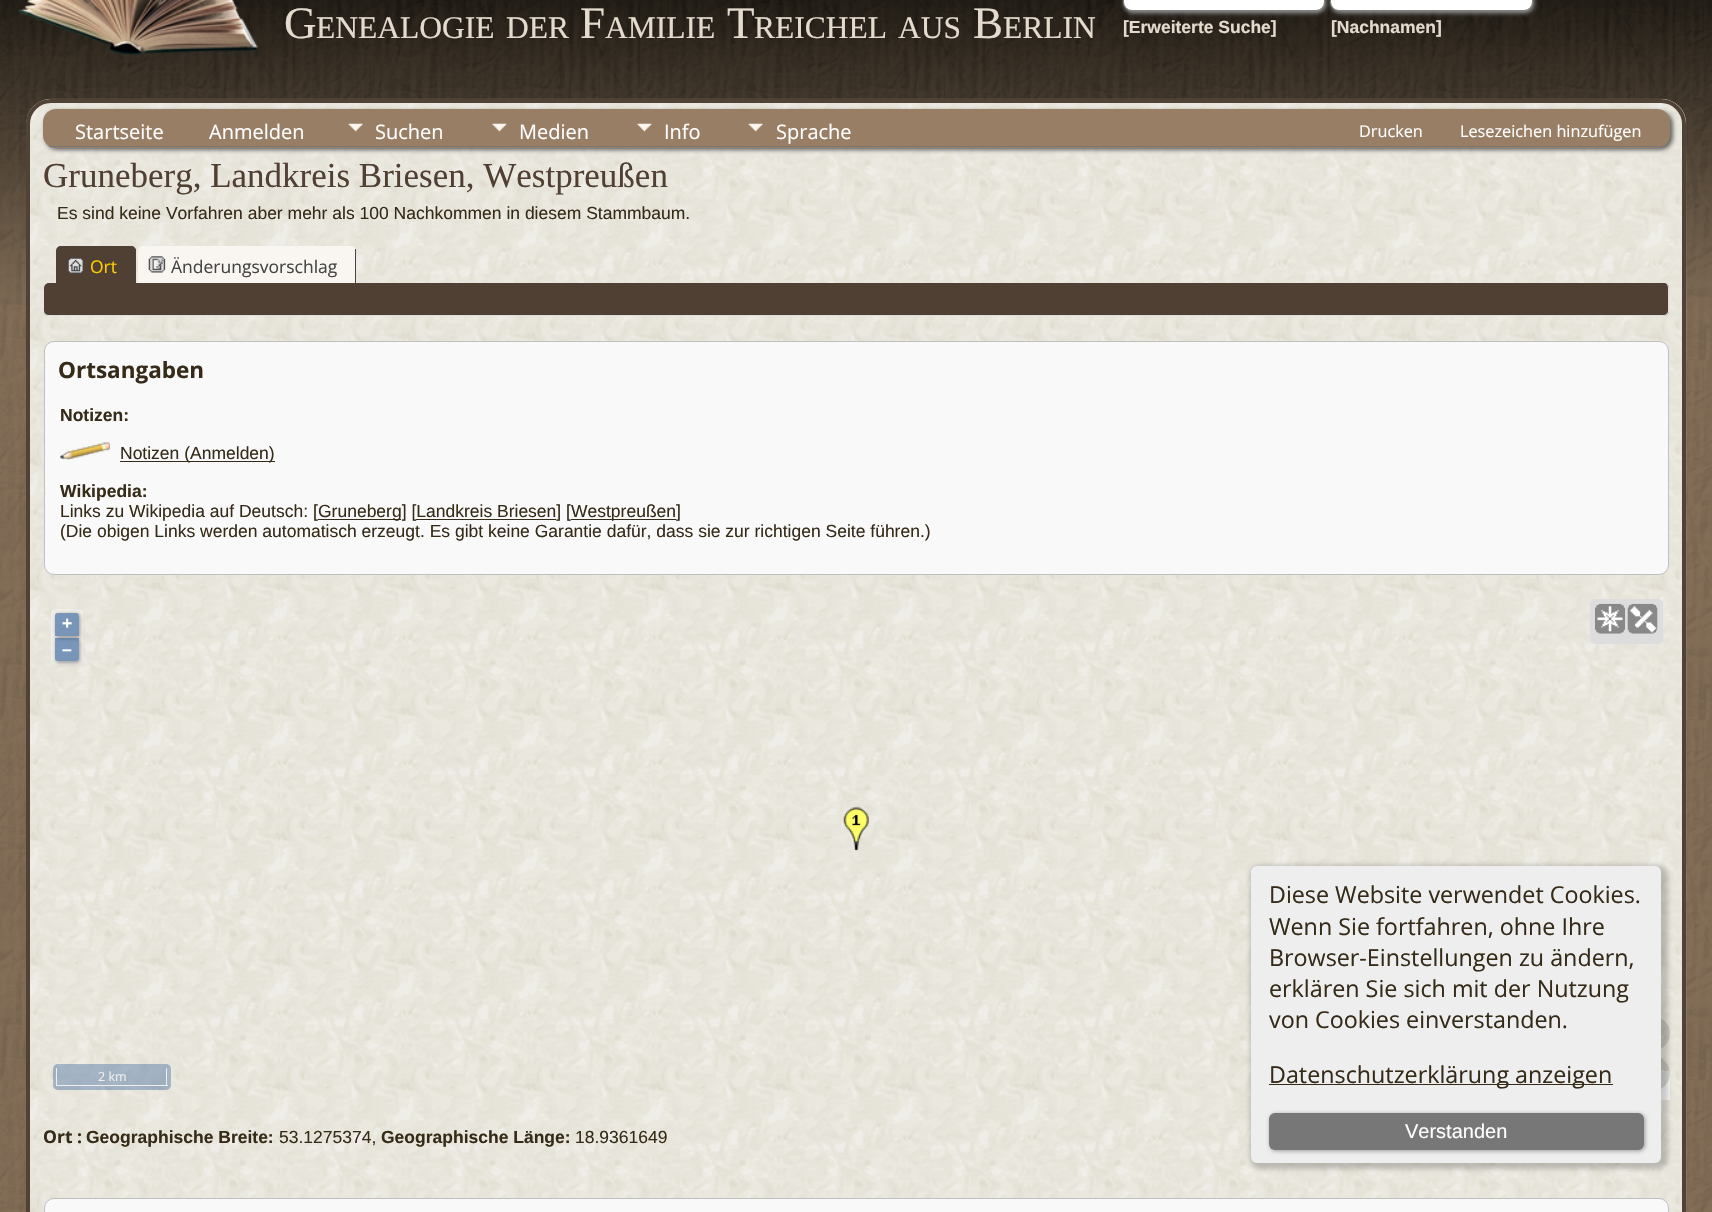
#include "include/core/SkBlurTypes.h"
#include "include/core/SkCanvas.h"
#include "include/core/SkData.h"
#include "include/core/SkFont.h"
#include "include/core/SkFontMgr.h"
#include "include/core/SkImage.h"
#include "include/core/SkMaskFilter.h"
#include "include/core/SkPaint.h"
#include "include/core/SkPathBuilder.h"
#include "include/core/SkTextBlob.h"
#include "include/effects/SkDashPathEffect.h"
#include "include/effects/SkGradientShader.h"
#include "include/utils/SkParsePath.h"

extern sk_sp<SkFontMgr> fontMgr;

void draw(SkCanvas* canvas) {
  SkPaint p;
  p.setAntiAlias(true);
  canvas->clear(SK_ColorWHITE);
  canvas->drawImageRect(SkImages::DeferredFromEncodedData(SkData::MakeFromFileName("images/1.png")), SkRect::MakeLTRB(0, 0, 1712, 1212), SkSamplingOptions());
  canvas->drawImageRect(SkImages::DeferredFromEncodedData(SkData::MakeFromFileName("images/2.png")), SkRect::MakeLTRB(18, 0, 258, 55), SkSamplingOptions());
  p.setColor(SkColorSetRGB(153, 153, 153));
  p.setMaskFilter(SkMaskFilter::MakeBlur(kNormal_SkBlurStyle, 2));
  canvas->drawRoundRect(SkRect::MakeLTRB(1124, -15, 1326, 13), 9, 9, p);
  p.setMaskFilter(nullptr);
  p.setColor(SK_ColorWHITE);
  canvas->drawRoundRect(SkRect::MakeLTRB(1123.5f, -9.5f, 1324.5f, 10.5f), 8.5f, 8.5f, p);
  p.setStyle(SkPaint::kStroke_Style);
  p.setStrokeWidth(1);
  p.setColor(SkColorSetRGB(128, 128, 128));
  canvas->drawRoundRect(SkRect::MakeLTRB(1123.5f, -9.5f, 1324.5f, 10.5f), 8.5f, 8.5f, p);
  p.setStyle(SkPaint::kFill_Style);
  p.setColor(SkColorSetRGB(153, 153, 153));
  p.setMaskFilter(SkMaskFilter::MakeBlur(kNormal_SkBlurStyle, 2));
  canvas->drawRoundRect(SkRect::MakeLTRB(1331, -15, 1534, 13), 9, 9, p);
  p.setMaskFilter(nullptr);
  p.setColor(SK_ColorWHITE);
  canvas->drawRoundRect(SkRect::MakeLTRB(1330.5f, -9.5f, 1532.5f, 10.5f), 8.5f, 8.5f, p);
  p.setStyle(SkPaint::kStroke_Style);
  p.setColor(SkColorSetRGB(128, 128, 128));
  canvas->drawRoundRect(SkRect::MakeLTRB(1330.5f, -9.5f, 1532.5f, 10.5f), 8.5f, 8.5f, p);
  canvas->drawImageRect(SkImages::DeferredFromEncodedData(SkData::MakeFromFileName("images/3.png")), SkRect::MakeLTRB(26, 98, 1687, 1212), SkSamplingOptions());
  p.setStrokeWidth(4);
  p.setColor(SkColorSetRGB(80, 67, 53));
  canvas->drawRoundRect(SkRect::MakeLTRB(28, 101, 1684, 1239), 23, 23, p);
  p.setStyle(SkPaint::kFill_Style);
  p.setColor(SkColorSetRGB(102, 102, 102));
  p.setMaskFilter(SkMaskFilter::MakeBlur(kNormal_SkBlurStyle, 2));
  canvas->drawRoundRect(SkRect::MakeLTRB(45, 111, 1673, 150), 13, 13, p);
  p.setMaskFilter(nullptr);
  p.setColor(SkColorSetRGB(152, 126, 100));
  canvas->drawRoundRect(SkRect::MakeLTRB(43, 109, 1670, 148), 13, 13, p);
  p.setColor(SkColorSetRGB(119, 119, 119));
  canvas->drawRect(SkRect::MakeLTRB(49, 146, 1664, 147), p);
  canvas->drawImageRect(SkImages::DeferredFromEncodedData(SkData::MakeFromFileName("images/4.png")), SkRect::MakeLTRB(348, 123, 363, 132), SkSamplingOptions());
  canvas->drawImageRect(SkImages::DeferredFromEncodedData(SkData::MakeFromFileName("images/5.png")), SkRect::MakeLTRB(492, 123, 507, 132), SkSamplingOptions());
  canvas->drawImageRect(SkImages::DeferredFromEncodedData(SkData::MakeFromFileName("images/5.png")), SkRect::MakeLTRB(637, 123, 652, 132), SkSamplingOptions());
  canvas->drawImageRect(SkImages::DeferredFromEncodedData(SkData::MakeFromFileName("images/6.png")), SkRect::MakeLTRB(748, 123, 763, 132), SkSamplingOptions());
  p.setColor(SkColorSetRGB(80, 64, 52));
  canvas->drawPath(SkPathBuilder().moveTo(61, 246).lineTo(131, 246).cubicTo(134, 246, 136, 248, 136, 251).lineTo(136, 283).lineTo(56, 283).lineTo(56, 251).cubicTo(56, 248, 58, 246, 61, 246).close().detach(), p);
  p.setColor(SkColorSetRGB(68, 68, 68));
  canvas->drawRect(SkRect::MakeLTRB(135, 249, 136, 283), p);
  canvas->drawImageRect(SkImages::DeferredFromEncodedData(SkData::MakeFromFileName("images/7.png")), SkRect::MakeLTRB(67, 257, 84, 274), SkSamplingOptions());
  p.setColor(SkColorSetRGB(249, 245, 240));
  canvas->drawPath(SkPathBuilder().moveTo(143, 246).lineTo(351, 246).cubicTo(354, 246, 356, 248, 356, 251).lineTo(356, 283).lineTo(138, 283).lineTo(138, 251).cubicTo(138, 248, 140, 246, 143, 246).close().detach(), p);
  p.setColor(SkColorSetRGB(68, 68, 68));
  canvas->drawRect(SkRect::MakeLTRB(355, 249, 356, 283), p);
  canvas->drawImageRect(SkImages::DeferredFromEncodedData(SkData::MakeFromFileName("images/8.png")), SkRect::MakeLTRB(148, 256, 166, 273), SkSamplingOptions());
  p.setColor(SkColorSetRGB(80, 64, 52));
  canvas->drawRoundRect(SkRect::MakeLTRB(44, 283, 1669, 316), 5, 5, p);
  p.setColor(SkColorSetRGB(221, 221, 221));
  canvas->drawPath(SkPathBuilder(SkPathFillType::kEvenOdd).moveTo(49, 282).lineTo(1664, 282).cubicTo(1667, 282, 1669, 285, 1669, 288).lineTo(1669, 311).cubicTo(1669, 314, 1667, 316, 1664, 316).lineTo(49, 316).cubicTo(46, 316, 44, 314, 44, 311).lineTo(44, 288).cubicTo(44, 285, 46, 282, 49, 282).close().moveTo(49, 282).lineTo(1664, 282).cubicTo(1666, 282, 1668, 285, 1668, 288).lineTo(1668, 311).cubicTo(1668, 313, 1666, 315, 1664, 315).lineTo(49, 315).cubicTo(46, 315, 44, 313, 44, 311).lineTo(44, 288).cubicTo(44, 285, 46, 282, 49, 282).close().detach(), p);
  p.setColor(SkColorSetRGB(249, 249, 249));
  canvas->drawRoundRect(SkRect::MakeLTRB(44.5f, 341.5f, 1668.5f, 574.5f), 9.5f, 9.5f, p);
  p.setStyle(SkPaint::kStroke_Style);
  p.setStrokeWidth(1);
  p.setColor(SkColorSetRGB(192, 192, 192));
  canvas->drawRoundRect(SkRect::MakeLTRB(44.5f, 341.5f, 1668.5f, 574.5f), 9.5f, 9.5f, p);
  canvas->drawImageRect(SkImages::DeferredFromEncodedData(SkData::MakeFromFileName("images/9.png")), SkRect::MakeLTRB(60, 442, 110, 460), SkSamplingOptions());
  p.setStyle(SkPaint::kFill_Style);
  p.setColor(SkColorSetRGB(53, 43, 24));
  canvas->drawRect(SkRect::MakeLTRB(120, 461, 275, 462), p);
  canvas->drawRect(SkRect::MakeLTRB(318, 519, 401, 520), p);
  canvas->drawRect(SkRect::MakeLTRB(571, 519, 676, 520), p);
  canvas->drawRect(SkRect::MakeLTRB(416, 519, 556, 520), p);
  p.setColor(SkColorSetARGB(102, 255, 255, 255));
  canvas->drawRoundRect(SkRect::MakeLTRB(51, 609, 83, 665), 5, 5, p);
  canvas->save();
  canvas->clipPath(SkPathBuilder(SkPathFillType::kEvenOdd).moveTo(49, 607).lineTo(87, 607).lineTo(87, 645).lineTo(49, 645).close().moveTo(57.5f, 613).lineTo(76.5f, 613).cubicTo(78, 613, 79, 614, 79, 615.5f).lineTo(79, 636).lineTo(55, 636).lineTo(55, 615.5f).cubicTo(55, 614, 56, 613, 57.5f, 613).close().detach(), true);
  p.setColor(SkColorSetRGB(153, 153, 153));
  p.setMaskFilter(SkMaskFilter::MakeBlur(kNormal_SkBlurStyle, 2));
  canvas->drawRoundRect(SkRect::MakeLTRB(56, 614, 80, 638), 2.5f, 2.5f, p);
  p.setMaskFilter(nullptr);
  canvas->restore();
  p.setColor(SkColorSetARGB(128, 0, 60, 136));
  canvas->drawPath(SkPathBuilder().moveTo(57.5f, 613).lineTo(76.5f, 613).cubicTo(78, 613, 79, 614, 79, 615.5f).lineTo(79, 636).lineTo(55, 636).lineTo(55, 615.5f).cubicTo(55, 614, 56, 613, 57.5f, 613).close().detach(), p);
  canvas->save();
  canvas->clipPath(SkPathBuilder(SkPathFillType::kEvenOdd).moveTo(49, 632).lineTo(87, 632).lineTo(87, 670).lineTo(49, 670).close().moveTo(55, 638).lineTo(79, 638).lineTo(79, 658.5f).cubicTo(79, 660, 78, 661, 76.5f, 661).lineTo(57.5f, 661).cubicTo(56, 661, 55, 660, 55, 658.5f).close().detach(), true);
  p.setColor(SkColorSetRGB(153, 153, 153));
  p.setMaskFilter(SkMaskFilter::MakeBlur(kNormal_SkBlurStyle, 2));
  canvas->drawRoundRect(SkRect::MakeLTRB(56, 639, 80, 663), 2.5f, 2.5f, p);
  p.setMaskFilter(nullptr);
  canvas->restore();
  p.setColor(SkColorSetARGB(128, 0, 60, 136));
  canvas->drawPath(SkPathBuilder().moveTo(55, 638).lineTo(79, 638).lineTo(79, 658.5f).cubicTo(79, 660, 78, 661, 76.5f, 661).lineTo(57.5f, 661).cubicTo(56, 661, 55, 660, 55, 658.5f).close().detach(), p);
  p.setColor(SkColorSetARGB(77, 0, 60, 136));
  canvas->drawRoundRect(SkRect::MakeLTRB(53, 1064, 171, 1090), 5, 5, p);
  p.setColor(SkColorSetRGB(238, 238, 238));
  canvas->drawRect(SkRect::MakeLTRB(166, 1068, 167, 1086), p);
  canvas->drawRect(SkRect::MakeLTRB(56, 1085, 168, 1086), p);
  canvas->drawRect(SkRect::MakeLTRB(56, 1068, 57, 1086), p);
  p.setColor(SkColorSetARGB(204, 255, 255, 255));
  canvas->drawRect(SkRect::MakeLTRB(1661, 1071, 1670, 1100), p);
  canvas->drawImageRect(SkImages::DeferredFromEncodedData(SkData::MakeFromFileName("images/10.png")), SkRect::MakeLTRB(843, 807, 869, 851), SkSamplingOptions());
  p.setColor(SkColorSetRGB(221, 221, 221));
  canvas->drawRoundRect(SkRect::MakeLTRB(1590, 599, 1663, 644), 5, 5, p);
  canvas->drawImageRect(SkImages::DeferredFromEncodedData(SkData::MakeFromFileName("images/11.png")), SkRect::MakeLTRB(1595, 603, 1625, 634), SkSamplingOptions());
  canvas->drawImageRect(SkImages::DeferredFromEncodedData(SkData::MakeFromFileName("images/12.png")), SkRect::MakeLTRB(1627, 603, 1658, 634), SkSamplingOptions());
  p.setColor(SkColorSetARGB(51, 85, 85, 85));
  canvas->drawCircle(1652.5f, 1033.5f, 17.5f, p);
  canvas->drawImageRect(SkImages::DeferredFromEncodedData(SkData::MakeFromFileName("images/13.png")), SkRect::MakeLTRB(1661, 1034, 1664, 1039), SkSamplingOptions());
  canvas->drawCircle(1652.5f, 1073.5f, 17.5f, p);
  canvas->drawImageRect(SkImages::DeferredFromEncodedData(SkData::MakeFromFileName("images/14.png")), SkRect::MakeLTRB(1661, 1068, 1665, 1074), SkSamplingOptions());
  p.setColor(SkColorSetARGB(51, 0, 0, 0));
  p.setMaskFilter(SkMaskFilter::MakeBlur(kNormal_SkBlurStyle, 2.5f));
  canvas->drawRoundRect(SkRect::MakeLTRB(1250, 865, 1668, 1169), 10, 10, p);
  p.setMaskFilter(nullptr);
  p.setColor(SkColorSetRGB(238, 238, 238));
  canvas->drawRoundRect(SkRect::MakeLTRB(1251, 866, 1661, 1163), 6, 6, p);
  p.setColor(SkColorSetRGB(53, 43, 24));
  canvas->drawRect(SkRect::MakeLTRB(1269, 1084, 1613, 1085), p);
  p.setColor(SkColorSetRGB(153, 153, 153));
  p.setMaskFilter(SkMaskFilter::MakeBlur(kNormal_SkBlurStyle, 2));
  canvas->drawRoundRect(SkRect::MakeLTRB(1270, 1114, 1645, 1151), 6, 6, p);
  p.setMaskFilter(nullptr);
  p.setColor(SkColorSetRGB(119, 119, 119));
  canvas->drawRoundRect(SkRect::MakeLTRB(1269, 1113, 1644, 1150), 6, 6, p);
  p.setColor(SkColorSetRGB(249, 249, 249));
  canvas->drawRoundRect(SkRect::MakeLTRB(44.5f, 1198.5f, 1668.5f, 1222.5f), 9.5f, 9.5f, p);
  p.setStyle(SkPaint::kStroke_Style);
  p.setColor(SkColorSetRGB(192, 192, 192));
  canvas->drawRoundRect(SkRect::MakeLTRB(44.5f, 1198.5f, 1668.5f, 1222.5f), 9.5f, 9.5f, p);
  SkFont font1(fontMgr->matchFamilyStyle("Liberation Serif", SkFontStyle::Normal()), 45);
  font1.setSubpixel(true);
  p.setStyle(SkPaint::kFill_Style);
  p.setColor(SkColorSetRGB(228, 219, 206));
  canvas->drawString("G", 284, 38, font1, p);
  SkFont font2(fontMgr->matchFamilyStyle("Liberation Serif", SkFontStyle::Normal()), 31.5f);
  font2.setSubpixel(true);
  canvas->drawString("ENEALOGIE", 316, 38, font2, p);
  canvas->drawString("DER", 506, 38, font2, p);
  canvas->drawString("F", 580, 38, font1, p);
  canvas->drawString("AMILIE", 605, 38, font2, p);
  canvas->drawString("T", 727, 38, font1, p);
  canvas->drawString("REICHEL", 754, 38, font2, p);
  canvas->drawString("AUS", 898, 38, font2, p);
  canvas->drawString("B", 973, 38, font1, p);
  canvas->drawString("ERLIN", 1003, 38, font2, p);
  SkFont font3(fontMgr->matchFamilyStyle("Liberation Sans", SkFontStyle::Bold()), 17.5f);
  font3.setSubpixel(true);
  canvas->drawString("[Erweiterte Suche]", 1123, 33, font3, p);
  canvas->drawString("[Nachnamen]", 1331, 33, font3, p);
  SkFont font4(fontMgr->matchFamilyStyle("Open Sans", SkFontStyle::Normal()), 20);
  font4.setSubpixel(true);
  p.setColor(SK_ColorWHITE);
  canvas->drawString("Startseite", 75, 139, font4, p);
  canvas->drawString("Anmelden", 209, 139, font4, p);
  canvas->drawString("Suchen", 375, 139, font4, p);
  canvas->drawString("Medien", 519, 139, font4, p);
  canvas->drawString("Info", 664, 139, font4, p);
  canvas->drawString("Sprache", 776, 139, font4, p);
  SkFont font5(fontMgr->matchFamilyStyle("Open Sans", SkFontStyle::Normal()), 16.25f);
  font5.setSubpixel(true);
  canvas->drawString("Drucken", 1359, 137, font5, p);
  canvas->drawString("Lesezeichen hinzufügen", 1460, 137, font5, p);
  SkFont font6(fontMgr->matchFamilyStyle("Liberation Serif", SkFontStyle::Normal()), 35);
  font6.setSubpixel(true);
  p.setColor(SkColorSetRGB(80, 64, 52));
  canvas->drawString("Gruneberg, Landkreis Briesen, Westpreußen", 43, 187, font6, p);
  SkFont font7(fontMgr->matchFamilyStyle("Liberation Sans", SkFontStyle::Normal()), 17.5f);
  font7.setSubpixel(true);
  p.setColor(SkColorSetRGB(53, 43, 24));
  canvas->drawString("Es sind keine Vorfahren aber mehr als 100 Nachkommen in diesem Stammbaum.", 57, 219, font7, p);
  SkFont font8(fontMgr->matchFamilyStyle("Open Sans", SkFontStyle::Normal()), 17.5f);
  font8.setSubpixel(true);
  p.setColor(SkColorSetRGB(255, 204, 0));
  canvas->drawString("Ort", 90, 273, font8, p);
  p.setColor(SkColorSetRGB(68, 68, 68));
  canvas->drawString("Änderungsvorschlag", 171, 273, font8, p);
  SkFont font9(fontMgr->matchFamilyStyle("Open Sans", SkFontStyle::Bold()), 22.5f);
  font9.setSubpixel(true);
  p.setColor(SkColorSetRGB(53, 43, 24));
  canvas->drawString("Ortsangaben", 58, 378, font9, p);
  canvas->drawString("Notizen:", 60, 421, font3, p);
  canvas->drawString("Notizen (Anmelden)", 120, 459, font7, p);
  canvas->drawString("Wikipedia:", 60, 497, font3, p);
  canvas->drawString("Links zu Wikipedia auf Deutsch: [", 60, 517, font7, p);
  canvas->drawString("Gruneberg] [Landkreis Briesen] [", 318, 517, font7, p);
  canvas->drawString("Westpreußen]", 571, 517, font7, p);
  canvas->drawString("(Die obigen Links werden automatisch erzeugt. Es gibt keine Garantie dafür, dass sie zur richtigen Seite führen.)", 60, 537, font7, p);
  p.setColor(SK_ColorWHITE);
  canvas->drawString("+", 62, 629, font3, p);
  canvas->drawString("–", 62, 655, font3, p);
  SkFont font10(fontMgr->matchFamilyStyle("Open Sans", SkFontStyle::Normal()), 12.5f);
  font10.setSubpixel(true);
  p.setColor(SkColorSetRGB(238, 238, 238));
  canvas->drawString("2 km", 98, 1081, font10, p);
  SkFont font11(fontMgr->matchFamilyStyle("Open Sans", SkFontStyle::Normal()), 23.3f);
  font11.setSubpixel(true);
  p.setColor(SkColorSetRGB(53, 43, 24));
  canvas->drawString("Diese Website verwendet Cookies.", 1269, 903, font11, p);
  canvas->drawString("Wenn Sie fortfahren, ohne Ihre", 1269, 935, font11, p);
  canvas->drawString("Browser-Einstellungen zu ändern,", 1269, 966, font11, p);
  canvas->drawString("erklären Sie sich mit der Nutzung", 1269, 997, font11, p);
  canvas->drawString("von Cookies einverstanden.", 1269, 1028, font11, p);
  canvas->drawString("Datenschutzerklärung anzeigen", 1269, 1083, font11, p);
  SkFont font12(fontMgr->matchFamilyStyle("Liberation Sans", SkFontStyle::Normal()), 20);
  font12.setSubpixel(true);
  p.setColor(SK_ColorWHITE);
  canvas->drawString("Verstanden", 1405, 1138, font12, p);
  SkFont font13(fontMgr->matchFamilyStyle("Open Sans", SkFontStyle::Bold()), 17.5f);
  font13.setSubpixel(true);
  p.setColor(SkColorSetRGB(53, 43, 24));
  canvas->drawString("Ort :", 43, 1143, font13, p);
  canvas->drawString("Geographische Breite:", 86, 1143, font3, p);
  canvas->drawString("53.1275374,", 279, 1143, font7, p);
  canvas->drawString("Geographische Länge:", 381, 1143, font3, p);
  canvas->drawString("18.9361649", 575, 1143, font7, p);
}
